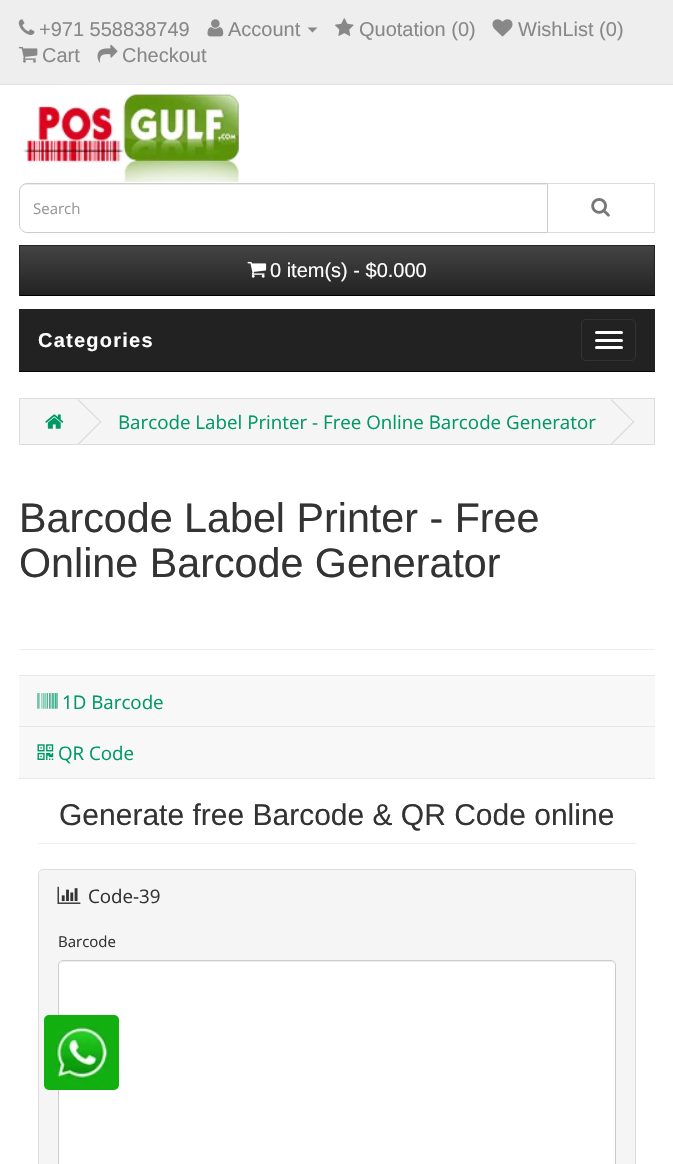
#include "include/core/SkBlurTypes.h"
#include "include/core/SkCanvas.h"
#include "include/core/SkData.h"
#include "include/core/SkFont.h"
#include "include/core/SkFontMgr.h"
#include "include/core/SkImage.h"
#include "include/core/SkMaskFilter.h"
#include "include/core/SkPaint.h"
#include "include/core/SkPathBuilder.h"
#include "include/core/SkTextBlob.h"
#include "include/effects/SkDashPathEffect.h"
#include "include/effects/SkGradientShader.h"
#include "include/utils/SkParsePath.h"

extern sk_sp<SkFontMgr> fontMgr;

void draw(SkCanvas* canvas) {
  SkPaint p;
  p.setAntiAlias(true);
  auto spacedText = [&](const char* s, float x, float y, const SkFont& font, const SkPaint& ink, float letter, float word) {
    std::vector<SkGlyphID> glyphs(font.countText(s, strlen(s), SkTextEncoding::kUTF8));
    std::vector<float> xs(glyphs.size());
    font.textToGlyphs(s, strlen(s), SkTextEncoding::kUTF8, glyphs);
    font.getXPos(glyphs, xs, x);
    float extra = 0;
    for (size_t i = 0; i < glyphs.size(); i++) {
      xs[i] += extra;
      extra += letter + word * (glyphs[i] == font.unicharToGlyph(' '));
    }
    canvas->drawTextBlob(SkTextBlob::MakeFromPosHGlyphs(glyphs, xs, y, font), 0, 0, ink);
  };
  canvas->clear(SK_ColorWHITE);
  p.setColor(SkColorSetRGB(238, 238, 238));
  canvas->drawRect(SkRect::MakeLTRB(0, 0, 673, 84), p);
  p.setColor(SkColorSetRGB(226, 226, 226));
  canvas->drawRect(SkRect::MakeLTRB(0, 84, 673, 85), p);
  canvas->drawImageRect(SkImages::DeferredFromEncodedData(SkData::MakeFromFileName("images/1.png")), SkRect::MakeLTRB(18, 19, 35, 35), SkSamplingOptions());
  canvas->drawImageRect(SkImages::DeferredFromEncodedData(SkData::MakeFromFileName("images/2.png")), SkRect::MakeLTRB(207, 19, 224, 37), SkSamplingOptions());
  p.setColor(SkColorSetRGB(136, 136, 136));
  canvas->drawPath(SkPathBuilder().moveTo(307.5f, 27.5f).lineTo(317.5f, 27.5f).lineTo(312.5f, 32.5f).close().detach(), p);
  canvas->drawImageRect(SkImages::DeferredFromEncodedData(SkData::MakeFromFileName("images/3.png")), SkRect::MakeLTRB(335, 18, 354, 36), SkSamplingOptions());
  canvas->drawImageRect(SkImages::DeferredFromEncodedData(SkData::MakeFromFileName("images/4.png")), SkRect::MakeLTRB(492, 19, 513, 37), SkSamplingOptions());
  canvas->drawImageRect(SkImages::DeferredFromEncodedData(SkData::MakeFromFileName("images/5.png")), SkRect::MakeLTRB(18, 46, 38, 63), SkSamplingOptions());
  canvas->drawImageRect(SkImages::DeferredFromEncodedData(SkData::MakeFromFileName("images/6.png")), SkRect::MakeLTRB(97, 44, 118, 63), SkSamplingOptions());
  canvas->drawImageRect(SkImages::DeferredFromEncodedData(SkData::MakeFromFileName("images/7.png")), SkRect::MakeLTRB(22, 84, 239, 182), SkSamplingOptions());
  p.setStyle(SkPaint::kStroke_Style);
  p.setStrokeWidth(1);
  p.setColor(SkColorSetRGB(221, 221, 221));
  canvas->drawRect(SkRect::MakeLTRB(546.5f, 183.5f, 654.5f, 232.5f), p);
  p.setStyle(SkPaint::kFill_Style);
  p.setColor(SK_ColorWHITE);
  canvas->drawPath(SkPathBuilder().moveTo(27, 183).lineTo(548, 183).lineTo(548, 233).lineTo(27, 233).cubicTo(22.5f, 233, 19, 229.5f, 19, 225).lineTo(19, 191).cubicTo(19, 186.5f, 22.5f, 183, 27, 183).close().detach(), p);
  p.setColor(SkColorSetRGB(236, 236, 236));
  canvas->drawPath(SkPathBuilder().moveTo(26, 185).lineTo(546, 185).lineTo(546, 184).lineTo(26, 184).cubicTo(22, 184, 20, 187, 20, 191).cubicTo(20, 188, 23, 185, 26, 185).close().detach(), p);
  p.setStyle(SkPaint::kStroke_Style);
  p.setColor(SkColorSetRGB(204, 204, 204));
  canvas->drawPath(SkPathBuilder().moveTo(27, 183.5f).lineTo(547.5f, 183.5f).lineTo(547.5f, 232.5f).lineTo(27, 232.5f).cubicTo(23, 232.5f, 19.5f, 229, 19.5f, 225).lineTo(19.5f, 191).cubicTo(19.5f, 187, 23, 183.5f, 27, 183.5f).close().detach(), p);
  canvas->drawImageRect(SkImages::DeferredFromEncodedData(SkData::MakeFromFileName("images/8.png")), SkRect::MakeLTRB(591, 198, 610, 217), SkSamplingOptions());
  p.setStyle(SkPaint::kFill_Style);
  {
    const SkColor colors[] = {SkColorSetRGB(68, 68, 68), SkColorSetRGB(34, 34, 34)};
    const float stops[] = {0, 1};
    const SkPoint ends[] = {{337, 246}, {337, 295}};
    p.setShader(SkGradientShader::MakeLinear(ends, colors, stops, 2, SkTileMode::kClamp));
    p.setAlpha(255);
  }
  canvas->drawRect(SkRect::MakeLTRB(20, 246, 654, 295), p);
  p.setShader(nullptr);
  p.setColor(SkColorSetRGB(34, 34, 34));
  canvas->drawRect(SkRect::MakeLTRB(19, 245, 655, 246), p);
  canvas->drawRect(SkRect::MakeLTRB(654, 245, 655, 296), p);
  p.setColor(SK_ColorBLACK);
  canvas->drawRect(SkRect::MakeLTRB(19, 295, 655, 296), p);
  p.setColor(SkColorSetRGB(34, 34, 34));
  canvas->drawRect(SkRect::MakeLTRB(19, 245, 20, 296), p);
  canvas->drawImageRect(SkImages::DeferredFromEncodedData(SkData::MakeFromFileName("images/9.png")), SkRect::MakeLTRB(247, 261, 267, 278), SkSamplingOptions());
  canvas->drawRect(SkRect::MakeLTRB(19, 309, 655, 371), p);
  p.setColor(SkColorSetRGB(8, 8, 8));
  canvas->drawRect(SkRect::MakeLTRB(19, 371, 655, 372), p);
  p.setStyle(SkPaint::kStroke_Style);
  p.setColor(SkColorSetRGB(51, 51, 51));
  canvas->drawRoundRect(SkRect::MakeLTRB(581.5f, 319.5f, 635.5f, 360.5f), 4.5f, 4.5f, p);
  p.setStyle(SkPaint::kFill_Style);
  p.setColor(SK_ColorWHITE);
  canvas->drawRoundRect(SkRect::MakeLTRB(595, 331, 623, 334), 1.5f, 1.5f, p);
  canvas->drawRoundRect(SkRect::MakeLTRB(595, 339, 623, 342), 1.5f, 1.5f, p);
  canvas->drawRoundRect(SkRect::MakeLTRB(595, 346, 623, 349), 1.5f, 1.5f, p);
  p.setColor(SkColorSetRGB(245, 245, 245));
  canvas->drawRect(SkRect::MakeLTRB(19.5f, 398.5f, 654.5f, 444.5f), p);
  p.setStyle(SkPaint::kStroke_Style);
  p.setColor(SkColorSetRGB(221, 221, 221));
  canvas->drawRect(SkRect::MakeLTRB(19.5f, 398.5f, 654.5f, 444.5f), p);
  canvas->drawImageRect(SkImages::DeferredFromEncodedData(SkData::MakeFromFileName("images/10.png")), SkRect::MakeLTRB(45, 414, 64, 429), SkSamplingOptions());
  p.setStyle(SkPaint::kFill_Style);
  canvas->drawPath(SkPathBuilder().moveTo(77.5f, 400).lineTo(78.5f, 399).lineTo(101.5f, 422).lineTo(100.5f, 422.5f).close().detach(), p);
  canvas->drawPath(SkPathBuilder().moveTo(77.5f, 444).lineTo(100.5f, 421).lineTo(101.5f, 422).lineTo(78.5f, 445).close().detach(), p);
  canvas->drawPath(SkPathBuilder().moveTo(610.5f, 400).lineTo(611.5f, 399).lineTo(634.5f, 422).lineTo(633.5f, 422.5f).close().detach(), p);
  canvas->drawPath(SkPathBuilder().moveTo(610.5f, 444).lineTo(633.5f, 421).lineTo(634.5f, 422).lineTo(611.5f, 445).close().detach(), p);
  p.setColor(SkColorSetRGB(238, 238, 238));
  canvas->drawRect(SkRect::MakeLTRB(19, 649, 655, 650), p);
  p.setColor(SkColorSetRGB(248, 248, 248));
  canvas->drawRect(SkRect::MakeLTRB(19, 676, 655, 778), p);
  p.setColor(SkColorSetRGB(231, 231, 231));
  canvas->drawRect(SkRect::MakeLTRB(19, 675, 655, 676), p);
  canvas->drawRect(SkRect::MakeLTRB(19, 726, 655, 727), p);
  canvas->drawImageRect(SkImages::DeferredFromEncodedData(SkData::MakeFromFileName("images/11.png")), SkRect::MakeLTRB(37, 693, 58, 709), SkSamplingOptions());
  canvas->drawRect(SkRect::MakeLTRB(19, 778, 655, 779), p);
  canvas->drawImageRect(SkImages::DeferredFromEncodedData(SkData::MakeFromFileName("images/12.png")), SkRect::MakeLTRB(37, 744, 54, 760), SkSamplingOptions());
  p.setColor(SkColorSetRGB(238, 238, 238));
  canvas->drawRect(SkRect::MakeLTRB(38, 843, 636, 844), p);
  p.setStyle(SkPaint::kStroke_Style);
  p.setColor(SkColorSetRGB(221, 221, 221));
  canvas->drawRoundRect(SkRect::MakeLTRB(38.5f, 869.5f, 635.5f, 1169.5f), 4.5f, 4.5f, p);
  p.setStyle(SkPaint::kFill_Style);
  p.setColor(SkColorSetRGB(245, 245, 245));
  canvas->drawPath(SkPathBuilder().moveTo(43, 870).lineTo(631, 870).cubicTo(633, 870, 635, 872, 635, 874).lineTo(635, 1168).lineTo(39, 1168).lineTo(39, 874).cubicTo(39, 872, 41, 870, 43, 870).close().detach(), p);
  canvas->drawImageRect(SkImages::DeferredFromEncodedData(SkData::MakeFromFileName("images/13.png")), SkRect::MakeLTRB(57, 886, 81, 904), SkSamplingOptions());
  p.setColor(SK_ColorWHITE);
  canvas->drawRoundRect(SkRect::MakeLTRB(58, 960, 616, 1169), 5, 5, p);
  p.setColor(SkColorSetRGB(236, 236, 236));
  canvas->drawPath(SkPathBuilder().moveTo(62, 962).lineTo(611, 962).cubicTo(613, 962, 615, 964, 615, 966).lineTo(615, 965).cubicTo(615, 963, 613, 961, 611, 961).lineTo(63, 961).cubicTo(61, 961, 59, 963, 59, 965).lineTo(59, 966).cubicTo(59, 964, 60, 962, 62, 962).close().detach(), p);
  p.setStyle(SkPaint::kStroke_Style);
  p.setColor(SkColorSetRGB(204, 204, 204));
  canvas->drawRoundRect(SkRect::MakeLTRB(58.5f, 960.5f, 615.5f, 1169.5f), 4.5f, 4.5f, p);
  p.setStyle(SkPaint::kFill_Style);
  p.setColor(SkColorSetRGB(18, 175, 17));
  canvas->drawRoundRect(SkRect::MakeLTRB(44, 1015, 119, 1090), 5, 5, p);
  canvas->drawImageRect(SkImages::DeferredFromEncodedData(SkData::MakeFromFileName("images/14.png")), SkRect::MakeLTRB(52, 1018, 116, 1087), SkSamplingOptions());
  SkFont font1(fontMgr->matchFamilyStyle("Liberation Sans", SkFontStyle::Normal()), 20);
  font1.setSubpixel(true);
  p.setColor(SkColorSetRGB(136, 136, 136));
  canvas->drawString("+971 558838749", 39, 36, font1, p);
  canvas->drawString("Account", 228, 36, font1, p);
  canvas->drawString("Quotation (0)", 359, 36, font1, p);
  canvas->drawString("WishList (0)", 518, 36, font1, p);
  canvas->drawString("Cart", 42, 62, font1, p);
  canvas->drawString("Checkout", 122, 62, font1, p);
  SkFont font2(fontMgr->matchFamilyStyle("Open Sans", SkFontStyle::Normal()), 15);
  font2.setSubpixel(true);
  p.setColor(SkColorSetRGB(153, 153, 153));
  canvas->drawString("Search", 33, 214, font2, p);
  p.setColor(SK_ColorWHITE);
  canvas->drawString("0 item(s) - $0.000", 270, 277, font1, p);
  SkFont font3(fontMgr->matchFamilyStyle("Liberation Sans", SkFontStyle::Bold()), 20);
  font3.setSubpixel(true);
  spacedText("Categories", 38, 347, font3, p, 1.25f, 0);
  SkFont font4(fontMgr->matchFamilyStyle("Open Sans", SkFontStyle::Normal()), 18.75f);
  font4.setSubpixel(true);
  p.setColor(SkColorSetRGB(0, 153, 102));
  canvas->drawString("Barcode Label Printer - Free Online Barcode Generator", 118, 429, font4, p);
  SkFont font5(fontMgr->matchFamilyStyle("Liberation Sans", SkFontStyle::Normal()), 41.25f);
  font5.setSubpixel(true);
  p.setColor(SkColorSetRGB(51, 51, 51));
  canvas->drawString("Barcode Label Printer - Free", 19, 532, font5, p);
  canvas->drawString("Online Barcode Generator", 19, 577, font5, p);
  p.setColor(SkColorSetRGB(0, 153, 102));
  canvas->drawString("1D Barcode", 62, 709, font4, p);
  canvas->drawString("QR Code", 58, 760, font4, p);
  SkFont font6(fontMgr->matchFamilyStyle("Liberation Sans", SkFontStyle::Normal()), 30);
  font6.setSubpixel(true);
  p.setColor(SkColorSetRGB(51, 51, 51));
  canvas->drawString("Generate free Barcode & QR Code online", 59, 825, font6, p);
  canvas->drawString("Code-39", 88, 903, font4, p);
  canvas->drawString("Barcode", 58, 947, font2, p);
}
